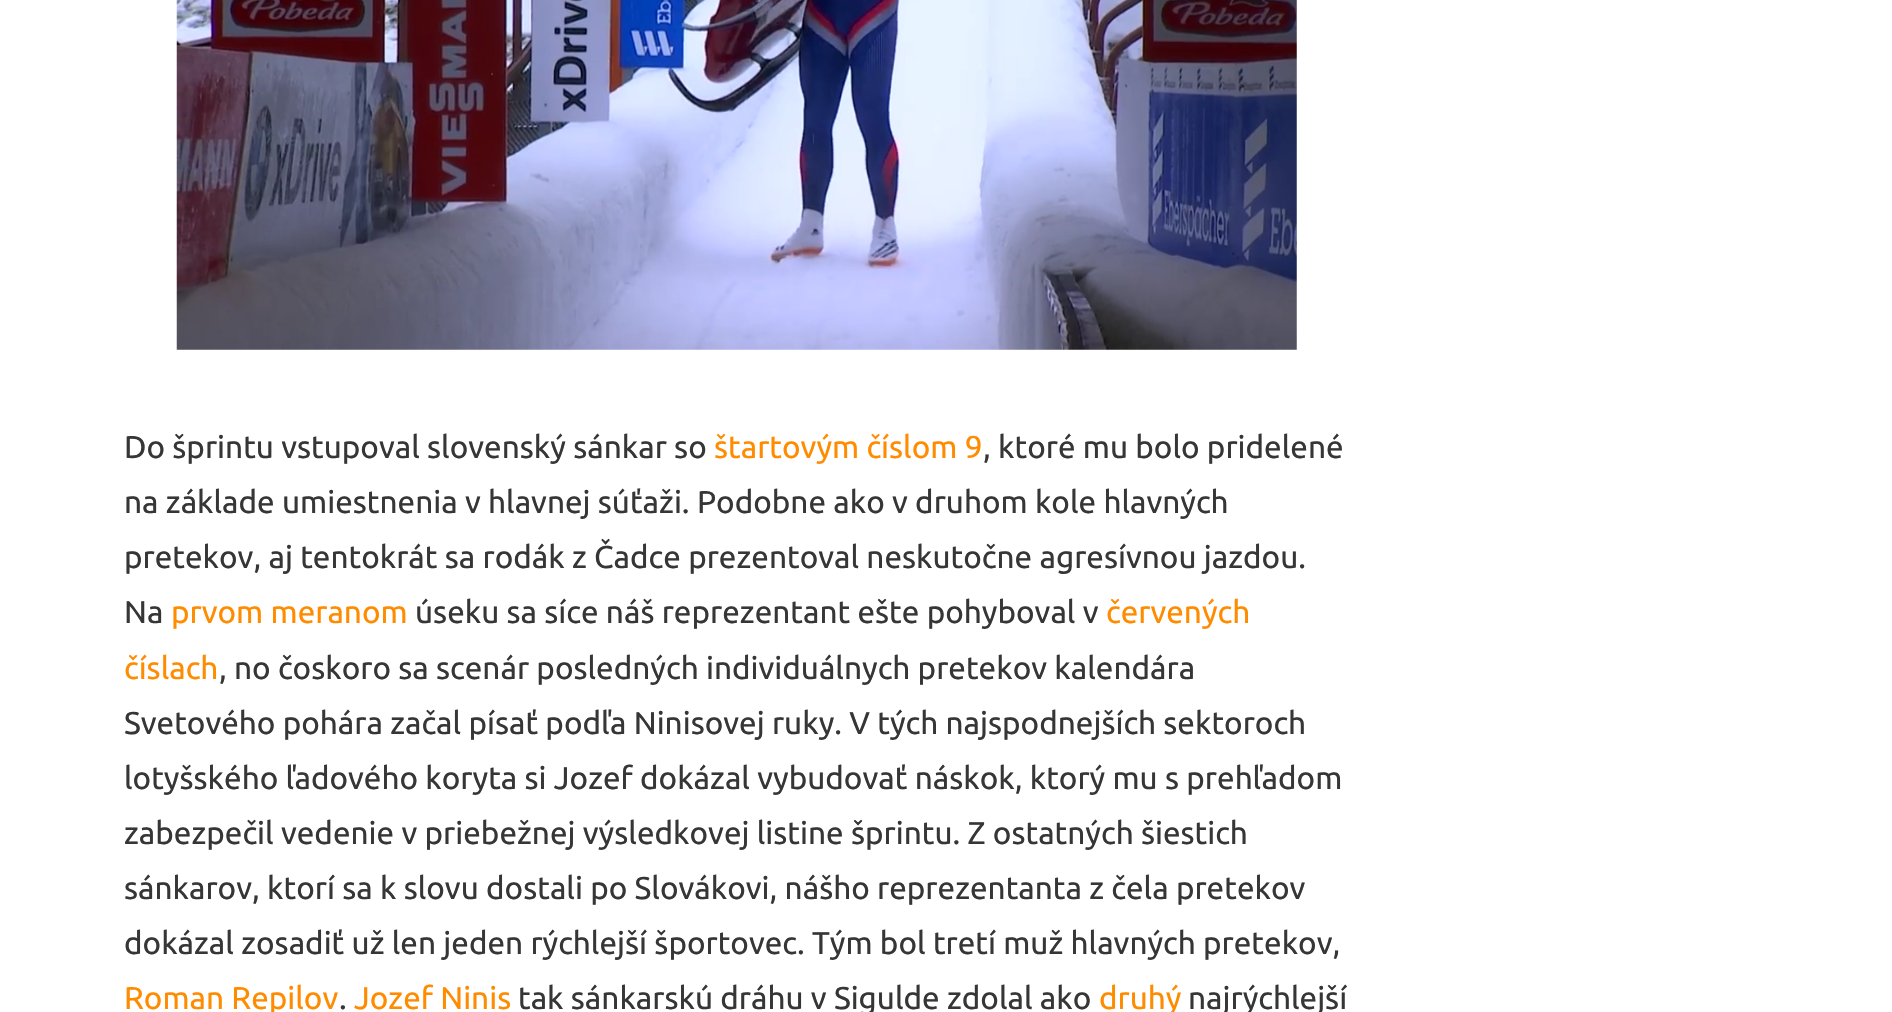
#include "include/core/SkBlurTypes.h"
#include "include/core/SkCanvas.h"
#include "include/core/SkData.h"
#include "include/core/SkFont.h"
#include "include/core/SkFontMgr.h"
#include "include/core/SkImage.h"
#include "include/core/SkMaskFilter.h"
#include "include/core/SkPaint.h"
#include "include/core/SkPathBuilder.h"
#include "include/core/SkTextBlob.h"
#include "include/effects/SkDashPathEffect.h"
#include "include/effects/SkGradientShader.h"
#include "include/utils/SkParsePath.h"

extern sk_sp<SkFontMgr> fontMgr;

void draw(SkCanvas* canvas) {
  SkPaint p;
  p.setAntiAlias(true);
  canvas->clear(SK_ColorWHITE);
  canvas->drawImageRect(SkImages::DeferredFromEncodedData(SkData::MakeFromFileName("images/1.png")), SkRect::MakeLTRB(176, 0, 1297, 350), SkSamplingOptions());
  SkFont font1(fontMgr->matchFamilyStyle("Ubuntu", SkFontStyle::Normal()), 31.5f);
  font1.setSubpixel(true);
  p.setColor(SkColorSetRGB(54, 54, 54));
  canvas->drawString("Do šprintu vstupoval slovenský sánkar so", 124, 458, font1, p);
  p.setColor(SkColorSetRGB(255, 140, 0));
  canvas->drawString("štartovým číslom 9", 714, 458, font1, p);
  p.setColor(SkColorSetRGB(54, 54, 54));
  canvas->drawString(", ktoré mu bolo pridelené", 983, 458, font1, p);
  canvas->drawString("na základe umiestnenia v hlavnej súťaži. Podobne ako v druhom kole hlavných", 124, 513, font1, p);
  canvas->drawString("pretekov, aj tentokrát sa rodák z Čadce prezentoval neskutočne agresívnou jazdou.", 124, 568, font1, p);
  canvas->drawString("Na", 124, 623, font1, p);
  p.setColor(SkColorSetRGB(255, 140, 0));
  canvas->drawString("prvom meranom", 171, 623, font1, p);
  p.setColor(SkColorSetRGB(54, 54, 54));
  canvas->drawString("úseku sa síce náš reprezentant ešte pohyboval v", 415, 623, font1, p);
  p.setColor(SkColorSetRGB(255, 140, 0));
  canvas->drawString("červených", 1106, 623, font1, p);
  canvas->drawString("číslach", 124, 679, font1, p);
  p.setColor(SkColorSetRGB(54, 54, 54));
  canvas->drawString(", no čoskoro sa scenár posledných individuálnych pretekov kalendára", 219, 679, font1, p);
  canvas->drawString("Svetového pohára začal písať podľa Ninisovej ruky. V tých najspodnejších sektoroch", 124, 734, font1, p);
  canvas->drawString("lotyšského ľadového koryta si Jozef dokázal vybudovať náskok, ktorý mu s prehľadom", 124, 789, font1, p);
  canvas->drawString("zabezpečil vedenie v priebežnej výsledkovej listine šprintu. Z ostatných šiestich", 124, 844, font1, p);
  canvas->drawString("sánkarov, ktorí sa k slovu dostali po Slovákovi, nášho reprezentanta z čela pretekov", 124, 899, font1, p);
  canvas->drawString("dokázal zosadiť už len jeden rýchlejší športovec. Tým bol tretí muž hlavných pretekov,", 124, 954, font1, p);
  p.setColor(SkColorSetRGB(255, 140, 0));
  canvas->drawString("Roman Repilov", 124, 1009, font1, p);
  p.setColor(SkColorSetRGB(54, 54, 54));
  canvas->drawString(".", 339, 1009, font1, p);
  p.setColor(SkColorSetRGB(255, 140, 0));
  canvas->drawString("Jozef Ninis", 354, 1009, font1, p);
  p.setColor(SkColorSetRGB(54, 54, 54));
  canvas->drawString("tak sánkarskú dráhu v Sigulde zdolal ako", 518, 1009, font1, p);
  p.setColor(SkColorSetRGB(255, 140, 0));
  canvas->drawString("druhý", 1099, 1009, font1, p);
  p.setColor(SkColorSetRGB(54, 54, 54));
  canvas->drawString("najrýchlejší", 1188, 1009, font1, p);
}
